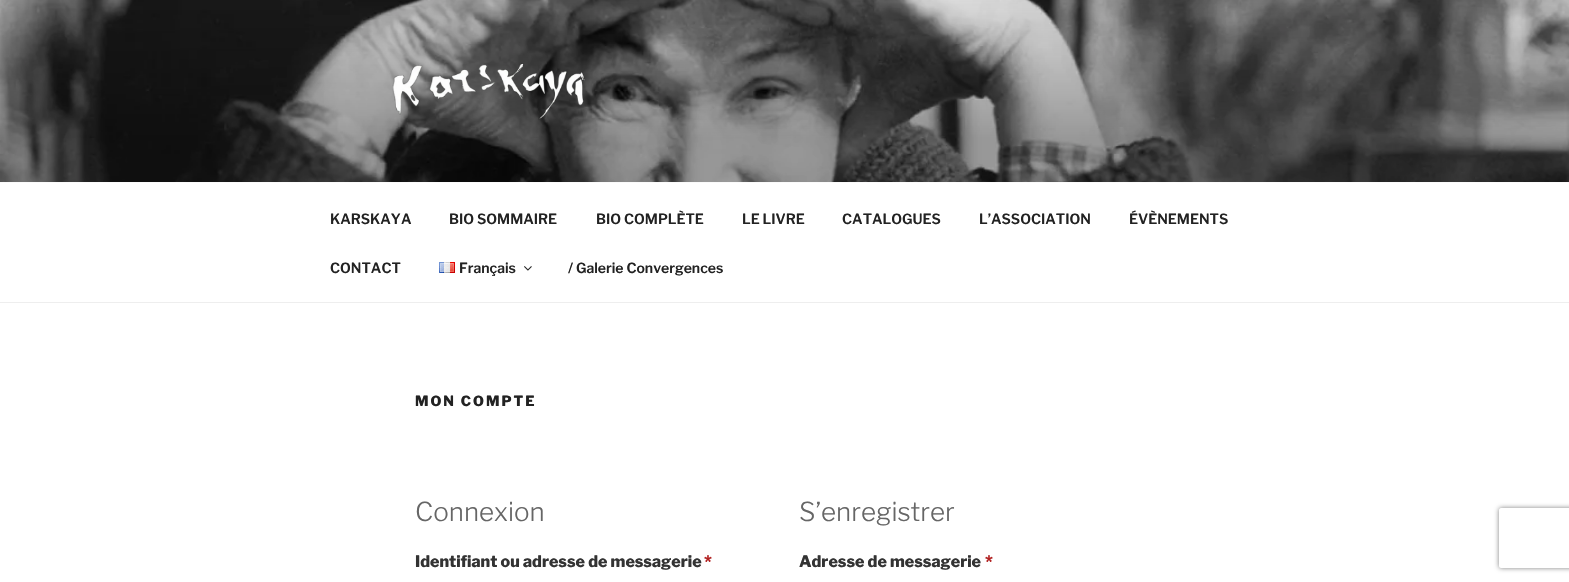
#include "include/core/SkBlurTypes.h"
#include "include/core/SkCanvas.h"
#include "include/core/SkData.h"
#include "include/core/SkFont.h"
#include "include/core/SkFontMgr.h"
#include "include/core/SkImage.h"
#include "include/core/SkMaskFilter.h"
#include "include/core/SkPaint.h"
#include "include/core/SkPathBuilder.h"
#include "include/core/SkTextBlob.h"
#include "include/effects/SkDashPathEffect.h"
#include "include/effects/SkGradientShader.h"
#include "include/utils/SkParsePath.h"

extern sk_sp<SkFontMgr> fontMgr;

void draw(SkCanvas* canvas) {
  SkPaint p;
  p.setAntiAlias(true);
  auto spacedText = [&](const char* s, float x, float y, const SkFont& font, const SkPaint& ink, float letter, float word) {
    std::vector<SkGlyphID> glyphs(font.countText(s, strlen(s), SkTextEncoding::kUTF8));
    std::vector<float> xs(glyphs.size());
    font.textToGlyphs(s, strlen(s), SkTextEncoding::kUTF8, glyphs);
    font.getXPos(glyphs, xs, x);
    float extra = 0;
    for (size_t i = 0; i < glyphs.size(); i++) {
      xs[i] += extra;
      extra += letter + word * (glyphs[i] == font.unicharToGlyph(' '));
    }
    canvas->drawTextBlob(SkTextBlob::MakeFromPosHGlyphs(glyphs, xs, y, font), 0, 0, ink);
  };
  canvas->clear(SK_ColorWHITE);
  p.setColor(SkColorSetRGB(250, 250, 250));
  canvas->drawRect(SkRect::MakeLTRB(0, 182, 1569, 183), p);
  canvas->drawImageRect(SkImages::DeferredFromEncodedData(SkData::MakeFromFileName("images/1.png")), SkRect::MakeLTRB(0, 0, 1569, 182), SkSamplingOptions());
  canvas->drawImageRect(SkImages::DeferredFromEncodedData(SkData::MakeFromFileName("images/2.png")), SkRect::MakeLTRB(392, 63, 585, 119), SkSamplingOptions());
  p.setColor(SkColorSetRGB(238, 238, 238));
  canvas->drawRect(SkRect::MakeLTRB(0, 302, 1569, 303), p);
  canvas->drawImageRect(SkImages::DeferredFromEncodedData(SkData::MakeFromFileName("images/3.png")), SkRect::MakeLTRB(439, 262, 455, 273), SkSamplingOptions());
  canvas->drawImageRect(SkImages::DeferredFromEncodedData(SkData::MakeFromFileName("images/4.png")), SkRect::MakeLTRB(524, 266, 532, 271), SkSamplingOptions());
  canvas->save();
  canvas->clipPath(SkPathBuilder(SkPathFillType::kEvenOdd).moveTo(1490, 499).lineTo(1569, 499).lineTo(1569, 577).lineTo(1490, 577).close().moveTo(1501, 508).lineTo(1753, 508).cubicTo(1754, 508, 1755, 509, 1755, 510).lineTo(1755, 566).cubicTo(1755, 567, 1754, 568, 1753, 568).lineTo(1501, 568).cubicTo(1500, 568, 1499, 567, 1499, 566).lineTo(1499, 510).cubicTo(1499, 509, 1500, 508, 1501, 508).close().detach(), true);
  p.setColor(SkColorSetRGB(128, 128, 128));
  p.setMaskFilter(SkMaskFilter::MakeBlur(kNormal_SkBlurStyle, 2.5f));
  canvas->drawRoundRect(SkRect::MakeLTRB(1499, 508, 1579, 568), 2, 2, p);
  p.setMaskFilter(nullptr);
  canvas->restore();
  SkFont font1(fontMgr->matchFamilyStyle("Libre Franklin", SkFontStyle(600, SkFontStyle::kNormal_Width, SkFontStyle::kUpright_Slant)), 14);
  font1.setSubpixel(true);
  p.setColor(SkColorSetRGB(34, 34, 34));
  canvas->drawString("KARSKAYA", 330, 224, font1, p);
  canvas->drawString("BIO SOMMAIRE", 449, 224, font1, p);
  canvas->drawString("BIO COMPLÈTE", 596, 224, font1, p);
  canvas->drawString("LE LIVRE", 742, 224, font1, p);
  canvas->drawString("CATALOGUES", 842, 224, font1, p);
  canvas->drawString("L’ASSOCIATION", 979, 224, font1, p);
  canvas->drawString("ÉVÈNEMENTS", 1129, 224, font1, p);
  canvas->drawString("CONTACT", 330, 273, font1, p);
  canvas->drawString("Français", 459, 273, font1, p);
  canvas->drawString("/ Galerie Convergences", 568, 273, font1, p);
  SkFont font2(fontMgr->matchFamilyStyle("Libre Franklin", SkFontStyle(800, SkFontStyle::kNormal_Width, SkFontStyle::kUpright_Slant)), 14);
  font2.setSubpixel(true);
  spacedText("MON COMPTE", 415, 406, font2, p, 2, 0);
  SkFont font3(fontMgr->matchFamilyStyle("Libre Franklin", SkFontStyle(300, SkFontStyle::kNormal_Width, SkFontStyle::kUpright_Slant)), 26);
  font3.setSubpixel(true);
  p.setColor(SkColorSetRGB(102, 102, 102));
  canvas->drawString("Connexion", 415, 521, font3, p);
  SkFont font4(fontMgr->matchFamilyStyle("Libre Franklin", SkFontStyle(800, SkFontStyle::kNormal_Width, SkFontStyle::kUpright_Slant)), 16);
  font4.setSubpixel(true);
  p.setColor(SkColorSetRGB(51, 51, 51));
  canvas->drawString("Identifiant ou adresse de messagerie", 415, 567, font4, p);
  p.setColor(SkColorSetRGB(178, 34, 34));
  canvas->drawString("*", 704, 567, font4, p);
  p.setColor(SkColorSetRGB(102, 102, 102));
  canvas->drawString("S’enregistrer", 799, 521, font3, p);
  p.setColor(SkColorSetRGB(51, 51, 51));
  canvas->drawString("Adresse de messagerie", 799, 567, font4, p);
  p.setColor(SkColorSetRGB(178, 34, 34));
  canvas->drawString("*", 985, 567, font4, p);
}
